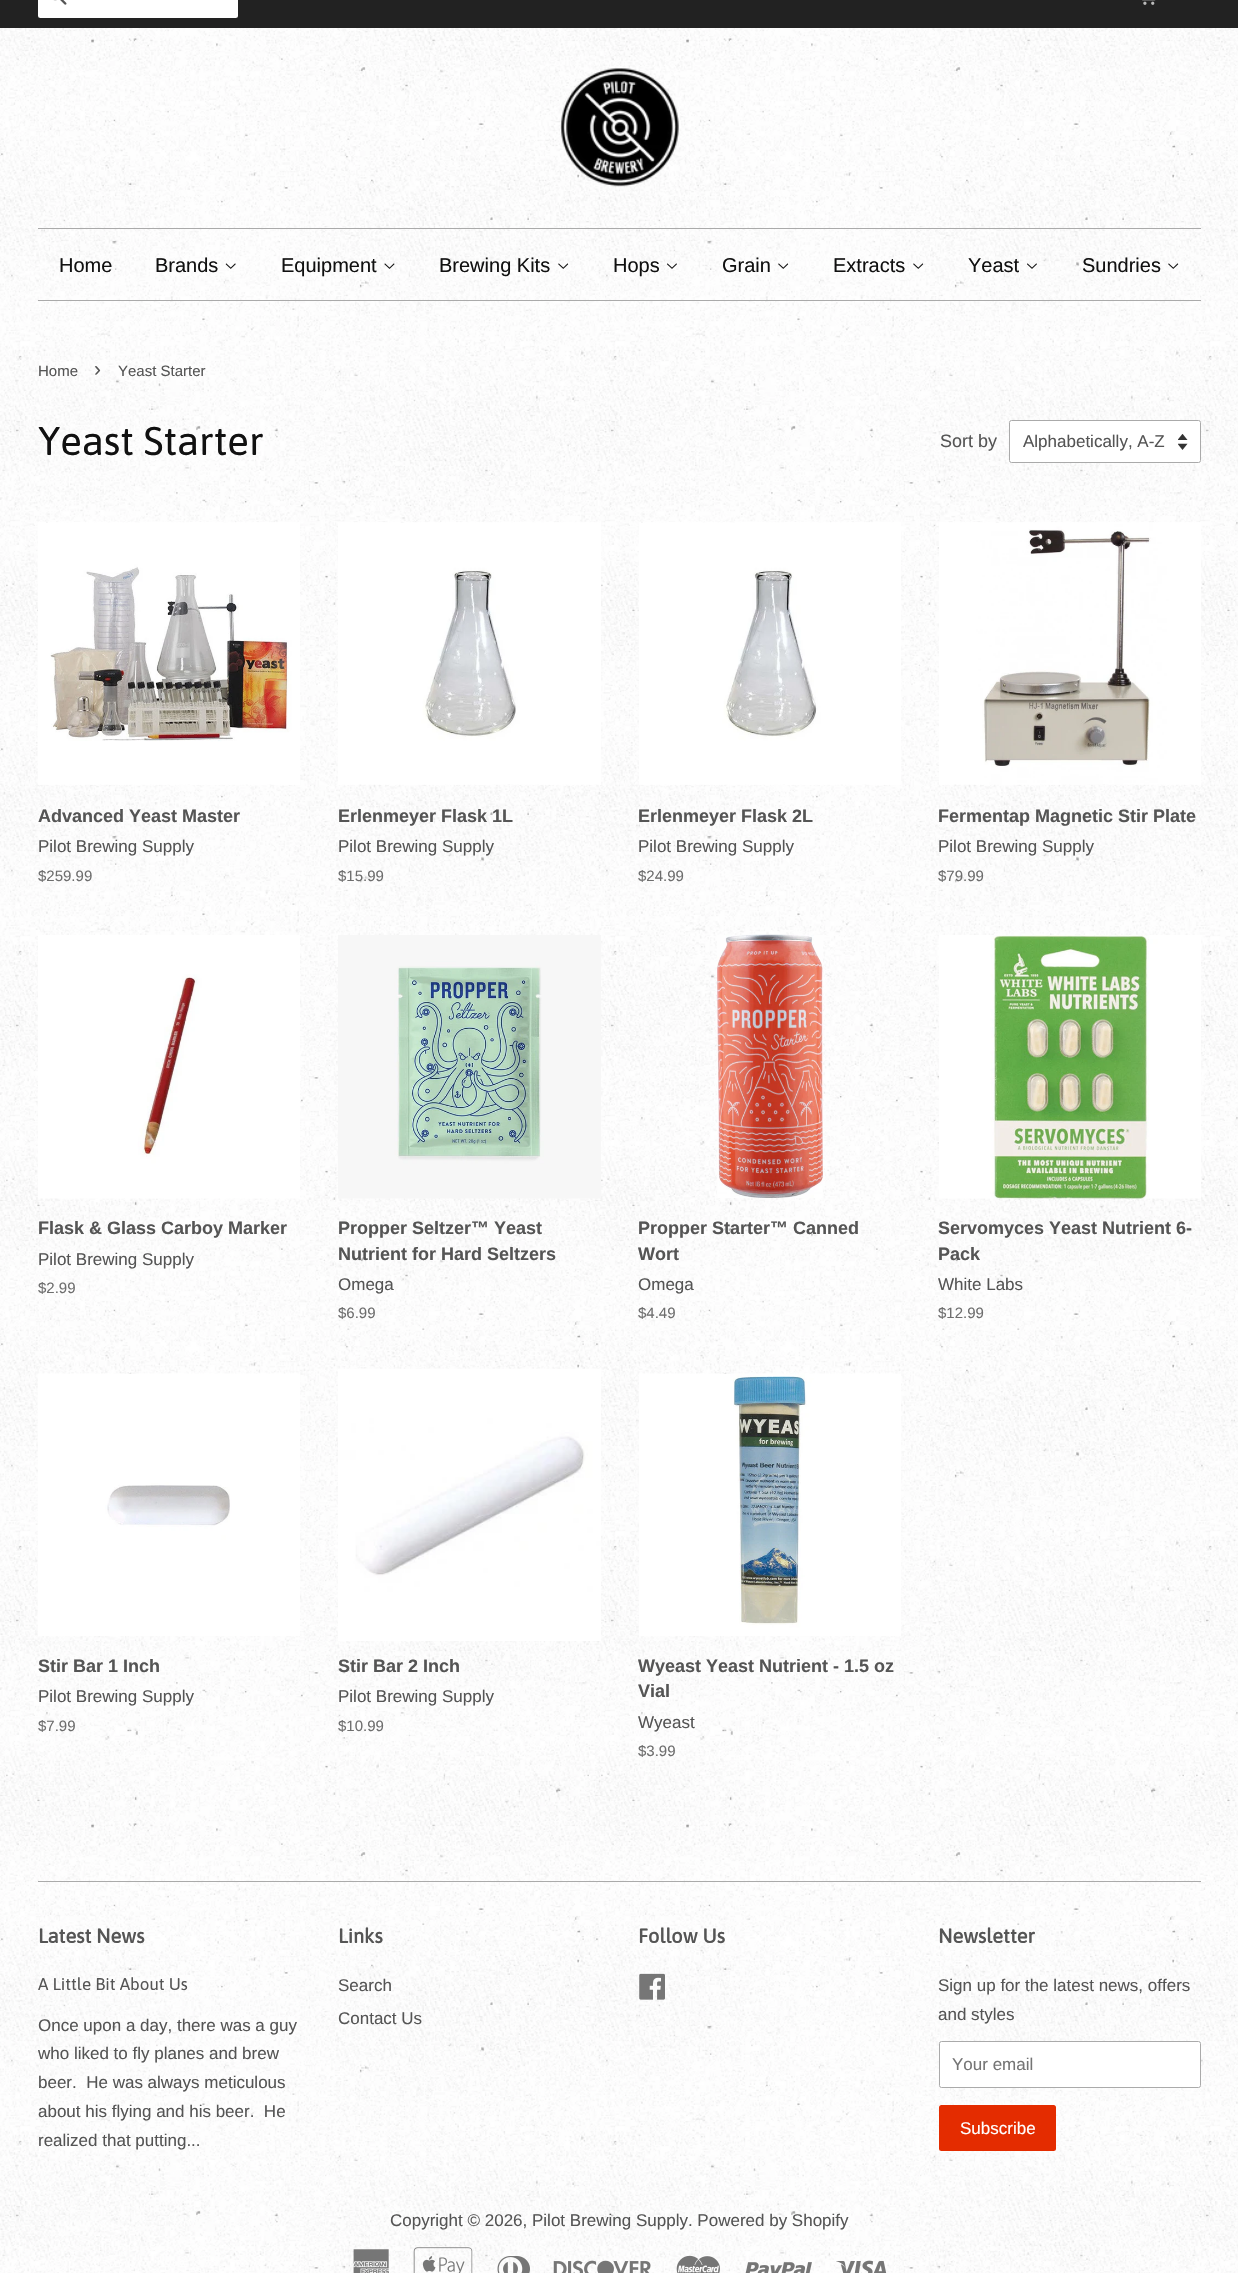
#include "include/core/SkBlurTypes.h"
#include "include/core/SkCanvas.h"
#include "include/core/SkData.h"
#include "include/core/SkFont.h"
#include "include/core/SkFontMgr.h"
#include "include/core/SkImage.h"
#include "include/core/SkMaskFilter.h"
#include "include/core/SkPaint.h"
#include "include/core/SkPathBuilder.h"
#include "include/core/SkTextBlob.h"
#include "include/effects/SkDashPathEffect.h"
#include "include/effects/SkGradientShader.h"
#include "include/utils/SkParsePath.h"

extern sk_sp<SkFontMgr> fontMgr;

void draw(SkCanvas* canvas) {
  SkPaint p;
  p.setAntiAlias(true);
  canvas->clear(SK_ColorWHITE);
  canvas->drawImageRect(SkImages::DeferredFromEncodedData(SkData::MakeFromFileName("images/1.png")), SkRect::MakeLTRB(0, 28, 1238, 2273), SkSamplingOptions());
  p.setColor(SkColorSetRGB(34, 34, 34));
  canvas->drawRect(SkRect::MakeLTRB(0, 0, 1238, 28), p);
  p.setColor(SK_ColorWHITE);
  canvas->drawRoundRect(SkRect::MakeLTRB(38, -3, 238, 18), 2.5f, 2.5f, p);
  canvas->drawImageRect(SkImages::DeferredFromEncodedData(SkData::MakeFromFileName("images/2.png")), SkRect::MakeLTRB(53, 0, 67, 5), SkSamplingOptions());
  canvas->drawImageRect(SkImages::DeferredFromEncodedData(SkData::MakeFromFileName("images/3.png")), SkRect::MakeLTRB(1142, 0, 1156, 5), SkSamplingOptions());
  canvas->drawImageRect(SkImages::DeferredFromEncodedData(SkData::MakeFromFileName("images/4.png")), SkRect::MakeLTRB(560, 68, 679, 187), SkSamplingOptions());
  p.setColor(SkColorSetRGB(170, 170, 170));
  canvas->drawRect(SkRect::MakeLTRB(38, 228, 1201, 229), p);
  canvas->drawRect(SkRect::MakeLTRB(38, 300, 1201, 301), p);
  canvas->drawImageRect(SkImages::DeferredFromEncodedData(SkData::MakeFromFileName("images/5.png")), SkRect::MakeLTRB(225, 263, 236, 269), SkSamplingOptions());
  canvas->drawImageRect(SkImages::DeferredFromEncodedData(SkData::MakeFromFileName("images/6.png")), SkRect::MakeLTRB(384, 263, 395, 269), SkSamplingOptions());
  canvas->drawImageRect(SkImages::DeferredFromEncodedData(SkData::MakeFromFileName("images/7.png")), SkRect::MakeLTRB(558, 263, 569, 269), SkSamplingOptions());
  canvas->drawImageRect(SkImages::DeferredFromEncodedData(SkData::MakeFromFileName("images/8.png")), SkRect::MakeLTRB(667, 263, 677, 269), SkSamplingOptions());
  canvas->drawImageRect(SkImages::DeferredFromEncodedData(SkData::MakeFromFileName("images/9.png")), SkRect::MakeLTRB(778, 263, 789, 269), SkSamplingOptions());
  canvas->drawImageRect(SkImages::DeferredFromEncodedData(SkData::MakeFromFileName("images/10.png")), SkRect::MakeLTRB(913, 263, 924, 269), SkSamplingOptions());
  canvas->drawImageRect(SkImages::DeferredFromEncodedData(SkData::MakeFromFileName("images/11.png")), SkRect::MakeLTRB(1027, 263, 1037, 269), SkSamplingOptions());
  canvas->drawImageRect(SkImages::DeferredFromEncodedData(SkData::MakeFromFileName("images/12.png")), SkRect::MakeLTRB(1168, 263, 1179, 269), SkSamplingOptions());
  p.setColor(SK_ColorWHITE);
  canvas->drawRoundRect(SkRect::MakeLTRB(1009, 420, 1201, 463), 2.5f, 2.5f, p);
  canvas->drawImageRect(SkImages::DeferredFromEncodedData(SkData::MakeFromFileName("images/13.png")), SkRect::MakeLTRB(1178, 434, 1188, 450), SkSamplingOptions());
  p.setStyle(SkPaint::kStroke_Style);
  p.setStrokeWidth(1);
  p.setColor(SkColorSetRGB(170, 170, 170));
  canvas->drawRoundRect(SkRect::MakeLTRB(1009.5f, 420.5f, 1200.5f, 462.5f), 2, 2, p);
  canvas->drawImageRect(SkImages::DeferredFromEncodedData(SkData::MakeFromFileName("images/14.png")), SkRect::MakeLTRB(37, 522, 300, 785), SkSamplingOptions());
  canvas->drawImageRect(SkImages::DeferredFromEncodedData(SkData::MakeFromFileName("images/15.png")), SkRect::MakeLTRB(338, 522, 601, 785), SkSamplingOptions());
  canvas->drawImageRect(SkImages::DeferredFromEncodedData(SkData::MakeFromFileName("images/16.png")), SkRect::MakeLTRB(639, 522, 901, 785), SkSamplingOptions());
  canvas->drawImageRect(SkImages::DeferredFromEncodedData(SkData::MakeFromFileName("images/17.png")), SkRect::MakeLTRB(939, 522, 1201, 785), SkSamplingOptions());
  canvas->drawImageRect(SkImages::DeferredFromEncodedData(SkData::MakeFromFileName("images/18.png")), SkRect::MakeLTRB(38, 935, 300, 1199), SkSamplingOptions());
  canvas->drawImageRect(SkImages::DeferredFromEncodedData(SkData::MakeFromFileName("images/19.png")), SkRect::MakeLTRB(338, 935, 601, 1199), SkSamplingOptions());
  canvas->drawImageRect(SkImages::DeferredFromEncodedData(SkData::MakeFromFileName("images/20.png")), SkRect::MakeLTRB(717, 934, 823, 1198), SkSamplingOptions());
  canvas->drawImageRect(SkImages::DeferredFromEncodedData(SkData::MakeFromFileName("images/21.png")), SkRect::MakeLTRB(939, 935, 1201, 1199), SkSamplingOptions());
  canvas->drawImageRect(SkImages::DeferredFromEncodedData(SkData::MakeFromFileName("images/22.png")), SkRect::MakeLTRB(37, 1373, 300, 1636), SkSamplingOptions());
  canvas->drawImageRect(SkImages::DeferredFromEncodedData(SkData::MakeFromFileName("images/23.png")), SkRect::MakeLTRB(338, 1368, 601, 1641), SkSamplingOptions());
  canvas->drawImageRect(SkImages::DeferredFromEncodedData(SkData::MakeFromFileName("images/24.png")), SkRect::MakeLTRB(639, 1373, 901, 1636), SkSamplingOptions());
  p.setStyle(SkPaint::kFill_Style);
  canvas->drawRect(SkRect::MakeLTRB(38, 1881, 1201, 1882), p);
  canvas->drawImageRect(SkImages::DeferredFromEncodedData(SkData::MakeFromFileName("images/25.png")), SkRect::MakeLTRB(639, 1973, 665, 2000), SkSamplingOptions());
  p.setColor(SK_ColorWHITE);
  canvas->drawRoundRect(SkRect::MakeLTRB(939.5f, 2041.5f, 1200.5f, 2087.5f), 2, 2, p);
  p.setStyle(SkPaint::kStroke_Style);
  p.setColor(SkColorSetRGB(170, 170, 170));
  canvas->drawRoundRect(SkRect::MakeLTRB(939.5f, 2041.5f, 1200.5f, 2087.5f), 2, 2, p);
  p.setStyle(SkPaint::kFill_Style);
  p.setColor(SkColorSetRGB(228, 44, 0));
  canvas->drawRoundRect(SkRect::MakeLTRB(939, 2105, 1056, 2151), 2.5f, 2.5f, p);
  canvas->drawImageRect(SkImages::DeferredFromEncodedData(SkData::MakeFromFileName("images/26.png")), SkRect::MakeLTRB(353, 2249, 389, 2273), SkSamplingOptions());
  canvas->drawImageRect(SkImages::DeferredFromEncodedData(SkData::MakeFromFileName("images/27.png")), SkRect::MakeLTRB(413, 2247, 473, 2273), SkSamplingOptions());
  canvas->drawImageRect(SkImages::DeferredFromEncodedData(SkData::MakeFromFileName("images/28.png")), SkRect::MakeLTRB(497, 2256, 530, 2273), SkSamplingOptions());
  canvas->drawImageRect(SkImages::DeferredFromEncodedData(SkData::MakeFromFileName("images/29.png")), SkRect::MakeLTRB(553, 2260, 651, 2273), SkSamplingOptions());
  canvas->drawImageRect(SkImages::DeferredFromEncodedData(SkData::MakeFromFileName("images/30.png")), SkRect::MakeLTRB(676, 2255, 720, 2273), SkSamplingOptions());
  canvas->drawImageRect(SkImages::DeferredFromEncodedData(SkData::MakeFromFileName("images/31.png")), SkRect::MakeLTRB(745, 2262, 812, 2273), SkSamplingOptions());
  canvas->drawImageRect(SkImages::DeferredFromEncodedData(SkData::MakeFromFileName("images/32.png")), SkRect::MakeLTRB(836, 2260, 887, 2273), SkSamplingOptions());
  SkFont font1(fontMgr->matchFamilyStyle("Liberation Sans", SkFontStyle::Normal()), 20);
  font1.setSubpixel(true);
  p.setColor(SkColorSetRGB(17, 17, 17));
  canvas->drawString("Home", 59, 272, font1, p);
  canvas->drawString("Brands", 155, 272, font1, p);
  canvas->drawString("Equipment", 281, 272, font1, p);
  canvas->drawString("Brewing Kits", 439, 272, font1, p);
  canvas->drawString("Hops", 613, 272, font1, p);
  canvas->drawString("Grain", 722, 272, font1, p);
  canvas->drawString("Extracts", 833, 272, font1, p);
  canvas->drawString("Yeast", 968, 272, font1, p);
  canvas->drawString("Sundries", 1082, 272, font1, p);
  SkFont font2(fontMgr->matchFamilyStyle("Liberation Sans", SkFontStyle::Normal()), 15);
  font2.setSubpixel(true);
  p.setColor(SkColorSetRGB(85, 85, 85));
  canvas->drawString("Home", 38, 376, font2, p);
  SkFont font3(fontMgr->matchFamilyStyle("Liberation Sans", SkFontStyle::Normal()), 21);
  font3.setSubpixel(true);
  canvas->drawString("›", 94, 376, font3, p);
  canvas->drawString("Yeast Starter", 118, 376, font2, p);
  SkFont font4(fontMgr->matchFamilyStyle("Asap", SkFontStyle::Normal()), 40);
  font4.setSubpixel(true);
  p.setColor(SkColorSetRGB(17, 17, 17));
  canvas->drawString("Yeast Starter", 38, 455, font4, p);
  SkFont font5(fontMgr->matchFamilyStyle("Liberation Sans", SkFontStyle::Normal()), 18);
  font5.setSubpixel(true);
  p.setColor(SkColorSetRGB(85, 85, 85));
  canvas->drawString("Sort by", 940, 447, font5, p);
  SkFont font6(fontMgr->matchFamilyStyle("Liberation Sans", SkFontStyle::Normal()), 17);
  font6.setSubpixel(true);
  canvas->drawString("Alphabetically, A-Z", 1023, 447, font6, p);
  SkFont font7(fontMgr->matchFamilyStyle("Liberation Sans", SkFontStyle::Bold()), 18);
  font7.setSubpixel(true);
  canvas->drawString("Advanced Yeast Master", 38, 822, font7, p);
  canvas->drawString("Pilot Brewing Supply", 38, 852, font6, p);
  p.setColor(SkColorSetRGB(110, 110, 110));
  canvas->drawString("$259.99", 38, 881, font2, p);
  p.setColor(SkColorSetRGB(85, 85, 85));
  canvas->drawString("Erlenmeyer Flask 1L", 338, 822, font7, p);
  canvas->drawString("Pilot Brewing Supply", 338, 852, font6, p);
  p.setColor(SkColorSetRGB(110, 110, 110));
  canvas->drawString("$15.99", 338, 881, font2, p);
  p.setColor(SkColorSetRGB(85, 85, 85));
  canvas->drawString("Erlenmeyer Flask 2L", 638, 822, font7, p);
  canvas->drawString("Pilot Brewing Supply", 638, 852, font6, p);
  p.setColor(SkColorSetRGB(110, 110, 110));
  canvas->drawString("$24.99", 638, 881, font2, p);
  p.setColor(SkColorSetRGB(85, 85, 85));
  canvas->drawString("Fermentap Magnetic Stir Plate", 938, 822, font7, p);
  canvas->drawString("Pilot Brewing Supply", 938, 852, font6, p);
  p.setColor(SkColorSetRGB(110, 110, 110));
  canvas->drawString("$79.99", 938, 881, font2, p);
  p.setColor(SkColorSetRGB(85, 85, 85));
  canvas->drawString("Flask & Glass Carboy Marker", 38, 1234, font7, p);
  canvas->drawString("Pilot Brewing Supply", 38, 1265, font6, p);
  p.setColor(SkColorSetRGB(110, 110, 110));
  canvas->drawString("$2.99", 38, 1293, font2, p);
  p.setColor(SkColorSetRGB(85, 85, 85));
  canvas->drawString("Propper Seltzer™ Yeast", 338, 1234, font7, p);
  canvas->drawString("Nutrient for Hard Seltzers", 338, 1260, font7, p);
  canvas->drawString("Omega", 338, 1290, font6, p);
  p.setColor(SkColorSetRGB(110, 110, 110));
  canvas->drawString("$6.99", 338, 1318, font2, p);
  p.setColor(SkColorSetRGB(85, 85, 85));
  canvas->drawString("Propper Starter™ Canned", 638, 1234, font7, p);
  canvas->drawString("Wort", 638, 1260, font7, p);
  canvas->drawString("Omega", 638, 1290, font6, p);
  p.setColor(SkColorSetRGB(110, 110, 110));
  canvas->drawString("$4.49", 638, 1318, font2, p);
  p.setColor(SkColorSetRGB(85, 85, 85));
  canvas->drawString("Servomyces Yeast Nutrient 6-", 938, 1234, font7, p);
  canvas->drawString("Pack", 938, 1260, font7, p);
  canvas->drawString("White Labs", 938, 1290, font6, p);
  p.setColor(SkColorSetRGB(110, 110, 110));
  canvas->drawString("$12.99", 938, 1318, font2, p);
  p.setColor(SkColorSetRGB(85, 85, 85));
  canvas->drawString("Stir Bar 1 Inch", 38, 1672, font7, p);
  canvas->drawString("Pilot Brewing Supply", 38, 1702, font6, p);
  p.setColor(SkColorSetRGB(110, 110, 110));
  canvas->drawString("$7.99", 38, 1731, font2, p);
  p.setColor(SkColorSetRGB(85, 85, 85));
  canvas->drawString("Stir Bar 2 Inch", 338, 1672, font7, p);
  canvas->drawString("Pilot Brewing Supply", 338, 1702, font6, p);
  p.setColor(SkColorSetRGB(110, 110, 110));
  canvas->drawString("$10.99", 338, 1731, font2, p);
  p.setColor(SkColorSetRGB(85, 85, 85));
  canvas->drawString("Wyeast Yeast Nutrient - 1.5 oz", 638, 1672, font7, p);
  canvas->drawString("Vial", 638, 1697, font7, p);
  canvas->drawString("Wyeast", 638, 1728, font6, p);
  p.setColor(SkColorSetRGB(110, 110, 110));
  canvas->drawString("$3.99", 638, 1756, font2, p);
  SkFont font8(fontMgr->matchFamilyStyle("Asap", SkFontStyle::Bold()), 20);
  font8.setSubpixel(true);
  p.setColor(SkColorSetRGB(85, 85, 85));
  canvas->drawString("Latest News", 38, 1943, font8, p);
  SkFont font9(fontMgr->matchFamilyStyle("Asap", SkFontStyle::Normal()), 17);
  font9.setSubpixel(true);
  canvas->drawString("A Little Bit About Us", 38, 1990, font9, p);
  canvas->drawString("Once upon a day, there was a guy", 38, 2031, font6, p);
  canvas->drawString("who liked to fly planes and brew", 38, 2059, font6, p);
  canvas->drawString("beer.  He was always meticulous", 38, 2088, font6, p);
  canvas->drawString("about his flying and his beer.  He", 38, 2117, font6, p);
  canvas->drawString("realized that putting...", 38, 2146, font6, p);
  canvas->drawString("Links", 338, 1943, font8, p);
  canvas->drawString("Search", 338, 1991, font6, p);
  canvas->drawString("Contact Us", 338, 2024, font6, p);
  canvas->drawString("Follow Us", 638, 1943, font8, p);
  canvas->drawString("Newsletter", 938, 1943, font8, p);
  canvas->drawString("Sign up for the latest news, offers", 938, 1991, font6, p);
  canvas->drawString("and styles", 938, 2020, font6, p);
  p.setColor(SkColorSetRGB(117, 117, 117));
  canvas->drawString("Your email", 952, 2070, font6, p);
  p.setColor(SK_ColorWHITE);
  canvas->drawString("Subscribe", 960, 2134, font6, p);
  p.setColor(SkColorSetRGB(85, 85, 85));
  canvas->drawString("Copyright © 2026, Pilot Brewing Supply. Powered by Shopify", 390, 2226, font6, p);
}
